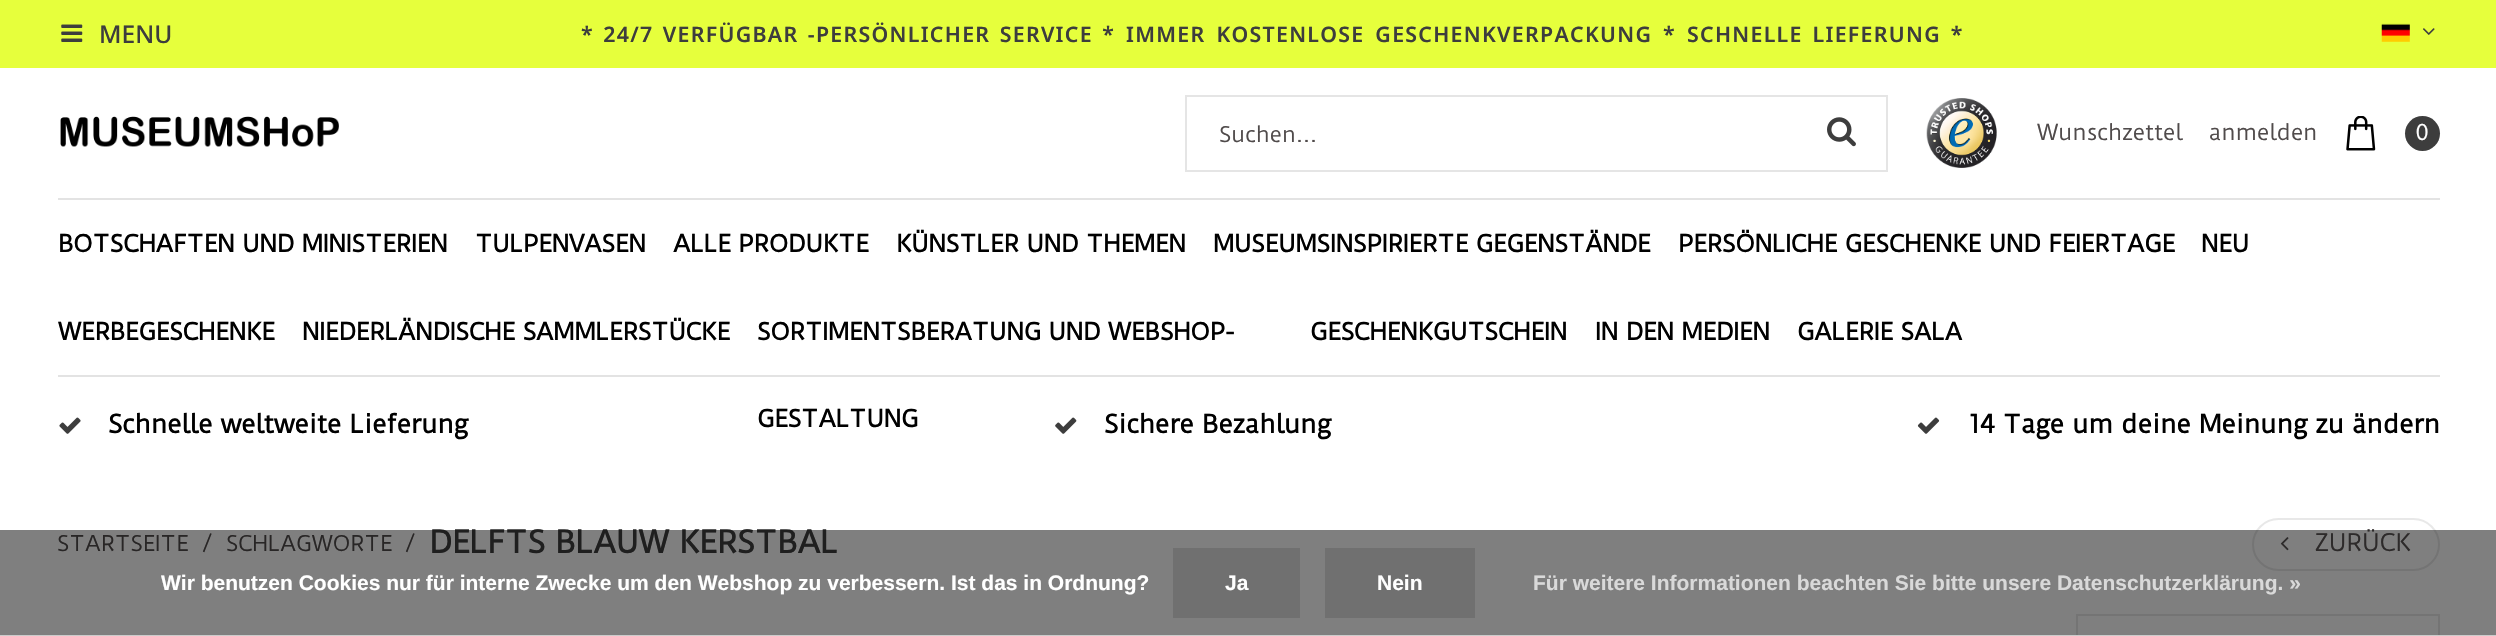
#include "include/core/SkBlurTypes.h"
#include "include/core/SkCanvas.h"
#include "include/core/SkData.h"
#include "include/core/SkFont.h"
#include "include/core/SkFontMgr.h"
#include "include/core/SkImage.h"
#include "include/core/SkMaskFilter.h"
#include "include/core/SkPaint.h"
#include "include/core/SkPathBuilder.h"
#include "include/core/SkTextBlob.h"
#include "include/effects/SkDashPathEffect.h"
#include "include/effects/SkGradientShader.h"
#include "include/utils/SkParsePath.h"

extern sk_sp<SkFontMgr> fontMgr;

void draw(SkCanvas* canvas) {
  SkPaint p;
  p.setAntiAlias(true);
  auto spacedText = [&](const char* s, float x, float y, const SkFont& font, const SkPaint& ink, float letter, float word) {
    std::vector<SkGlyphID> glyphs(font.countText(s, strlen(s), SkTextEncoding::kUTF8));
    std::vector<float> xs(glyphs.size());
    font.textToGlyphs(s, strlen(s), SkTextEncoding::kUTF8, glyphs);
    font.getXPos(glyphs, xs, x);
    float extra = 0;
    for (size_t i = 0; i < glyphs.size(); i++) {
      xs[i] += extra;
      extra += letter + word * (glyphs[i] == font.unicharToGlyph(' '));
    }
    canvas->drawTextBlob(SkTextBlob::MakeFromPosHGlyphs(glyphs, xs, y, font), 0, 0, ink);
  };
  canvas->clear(SK_ColorWHITE);
  p.setColor(SkColorSetRGB(230, 255, 60));
  canvas->drawRect(SkRect::MakeLTRB(0, 0, 2496, 68), p);
  canvas->drawImageRect(SkImages::DeferredFromEncodedData(SkData::MakeFromFileName("images/1.png")), SkRect::MakeLTRB(61, 24, 83, 42), SkSamplingOptions());
  canvas->drawImageRect(SkImages::DeferredFromEncodedData(SkData::MakeFromFileName("images/2.png")), SkRect::MakeLTRB(2381, 23, 2410, 42), SkSamplingOptions());
  canvas->drawImageRect(SkImages::DeferredFromEncodedData(SkData::MakeFromFileName("images/3.png")), SkRect::MakeLTRB(2423, 28, 2435, 35), SkSamplingOptions());
  canvas->drawImageRect(SkImages::DeferredFromEncodedData(SkData::MakeFromFileName("images/4.png")), SkRect::MakeLTRB(60, 116, 339, 147), SkSamplingOptions());
  p.setStyle(SkPaint::kStroke_Style);
  p.setStrokeWidth(2);
  p.setColor(SkColorSetRGB(229, 229, 229));
  canvas->drawRect(SkRect::MakeLTRB(1186, 96, 1887, 171), p);
  canvas->drawImageRect(SkImages::DeferredFromEncodedData(SkData::MakeFromFileName("images/5.png")), SkRect::MakeLTRB(1827, 117, 1856, 147), SkSamplingOptions());
  canvas->drawImageRect(SkImages::DeferredFromEncodedData(SkData::MakeFromFileName("images/6.png")), SkRect::MakeLTRB(1926, 98, 1997, 168), SkSamplingOptions());
  canvas->drawImageRect(SkImages::DeferredFromEncodedData(SkData::MakeFromFileName("images/7.png")), SkRect::MakeLTRB(2346, 116, 2376, 151), SkSamplingOptions());
  p.setStyle(SkPaint::kFill_Style);
  p.setColor(SkColorSetRGB(61, 61, 61));
  canvas->drawCircle(2422.5f, 133.5f, 17.5f, p);
  p.setColor(SkColorSetRGB(227, 227, 227));
  canvas->drawRect(SkRect::MakeLTRB(58, 198, 2440, 200), p);
  canvas->drawRect(SkRect::MakeLTRB(58, 375, 2440, 377), p);
  canvas->drawImageRect(SkImages::DeferredFromEncodedData(SkData::MakeFromFileName("images/8.png")), SkRect::MakeLTRB(59, 417, 81, 434), SkSamplingOptions());
  canvas->drawImageRect(SkImages::DeferredFromEncodedData(SkData::MakeFromFileName("images/9.png")), SkRect::MakeLTRB(1055, 417, 1077, 434), SkSamplingOptions());
  canvas->drawImageRect(SkImages::DeferredFromEncodedData(SkData::MakeFromFileName("images/10.png")), SkRect::MakeLTRB(1917, 417, 1940, 434), SkSamplingOptions());
  p.setStyle(SkPaint::kStroke_Style);
  p.setColor(SkColorSetRGB(232, 232, 232));
  canvas->drawRoundRect(SkRect::MakeLTRB(2253, 519, 2439, 570), 25.5f, 25.5f, p);
  canvas->drawImageRect(SkImages::DeferredFromEncodedData(SkData::MakeFromFileName("images/11.png")), SkRect::MakeLTRB(2280, 537, 2289, 551), SkSamplingOptions());
  canvas->drawRect(SkRect::MakeLTRB(2077, 615, 2439, 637), p);
  p.setStyle(SkPaint::kFill_Style);
  p.setColor(SkColorSetRGB(204, 204, 204));
  canvas->drawRect(SkRect::MakeLTRB(0, 635, 2496, 636), p);
  SkFont font1(fontMgr->matchFamilyStyle("Noto Sans", SkFontStyle(500, SkFontStyle::kNormal_Width, SkFontStyle::kUpright_Slant)), 24.5f);
  font1.setSubpixel(true);
  p.setColor(SkColorSetRGB(61, 61, 61));
  canvas->drawString("MENU", 99, 43, font1, p);
  SkFont font2(fontMgr->matchFamilyStyle("Noto Sans", SkFontStyle(600, SkFontStyle::kNormal_Width, SkFontStyle::kUpright_Slant)), 21.3f);
  font2.setSubpixel(true);
  spacedText("* 24/7 VERFÜGBAR -PERSÖNLICHER SERVICE *", 581, 42, font2, p, 1.3f, 2.5f);
  spacedText("IMMER KOSTENLOSE GESCHENKVERPACKUNG *", 1126, 42, font2, p, 1.3f, 4);
  spacedText("SCHNELLE LIEFERUNG *", 1687, 42, font2, p, 1.3f, 3);
  SkFont font3(fontMgr->matchFamilyStyle("Duru Sans", SkFontStyle::Normal()), 21);
  font3.setSubpixel(true);
  p.setColor(SkColorSetRGB(80, 75, 75));
  canvas->drawString("Suchen...", 1219, 142, font3, p);
  SkFont font4(fontMgr->matchFamilyStyle("Duru Sans", SkFontStyle::Normal()), 21.3f);
  font4.setSubpixel(true);
  canvas->drawString("Wunschzettel", 2037, 140, font4, p);
  canvas->drawString("anmelden", 2209, 140, font4, p);
  p.setColor(SK_ColorWHITE);
  canvas->drawString("0", 2415, 140, font4, p);
  SkFont font5(fontMgr->matchFamilyStyle("Duru Sans", SkFontStyle::Bold()), 23);
  font5.setSubpixel(true);
  p.setColor(SK_ColorBLACK);
  canvas->drawString("BOTSCHAFTEN UND MINISTERIEN", 58, 252, font5, p);
  canvas->drawString("TULPENVASEN", 475, 252, font5, p);
  canvas->drawString("ALLE PRODUKTE", 673, 252, font5, p);
  canvas->drawString("KÜNSTLER UND THEMEN", 896, 252, font5, p);
  canvas->drawString("MUSEUMSINSPIRIERTE GEGENSTÄNDE", 1213, 252, font5, p);
  canvas->drawString("PERSÖNLICHE GESCHENKE UND FEIERTAGE", 1678, 252, font5, p);
  canvas->drawString("NEU", 2201, 252, font5, p);
  canvas->drawString("WERBEGESCHENKE", 58, 340, font5, p);
  canvas->drawString("NIEDERLÄNDISCHE SAMMLERSTÜCKE", 302, 340, font5, p);
  canvas->drawString("SORTIMENTSBERATUNG UND WEBSHOP-", 757, 340, font5, p);
  canvas->drawString("GESTALTUNG", 757, 427, font5, p);
  canvas->drawString("GESCHENKGUTSCHEIN", 1310, 340, font5, p);
  canvas->drawString("IN DEN MEDIEN", 1595, 340, font5, p);
  canvas->drawString("GALERIE SALA", 1797, 340, font5, p);
  SkFont font6(fontMgr->matchFamilyStyle("Duru Sans", SkFontStyle::Bold()), 24.5f);
  font6.setSubpixel(true);
  canvas->drawString("Schnelle weltweite Lieferung", 108, 433, font6, p);
  canvas->drawString("Sichere Bezahlung", 1104, 433, font6, p);
  canvas->drawString("14 Tage um deine Meinung zu ändern", 1968, 433, font6, p);
  p.setColor(SkColorSetRGB(80, 75, 75));
  canvas->drawString("STARTSEITE", 57, 551, font3, p);
  canvas->drawString("/", 202, 551, font3, p);
  canvas->drawString("SCHLAGWORTE", 226, 551, font3, p);
  canvas->drawString("/", 405, 551, font3, p);
  SkFont font7(fontMgr->matchFamilyStyle("Duru Sans", SkFontStyle::Bold()), 30.25f);
  font7.setSubpixel(true);
  p.setColor(SkColorSetRGB(61, 61, 61));
  canvas->drawString("DELFTS BLAUW KERSTBAL", 429, 553, font7, p);
  SkFont font8(fontMgr->matchFamilyStyle("Duru Sans", SkFontStyle::Normal()), 23.5f);
  font8.setSubpixel(true);
  p.setColor(SkColorSetRGB(89, 84, 84));
  canvas->drawString("ZURÜCK", 2315, 551, font8, p);
  p.setColor(SkColorSetARGB(128, 0, 0, 0));
  canvas->drawRect(SkRect::MakeLTRB(0, 530, 2496, 635), p);
  SkFont font9(fontMgr->matchFamilyStyle("Liberation Sans", SkFontStyle::Bold()), 21);
  font9.setSubpixel(true);
  p.setColor(SK_ColorWHITE);
  canvas->drawString("Wir benutzen Cookies nur für interne Zwecke um den Webshop zu verbessern. Ist das in Ordnung?", 161, 590, font9, p);
  p.setColor(SkColorSetRGB(112, 112, 112));
  canvas->drawRect(SkRect::MakeLTRB(1173, 548, 1300, 618), p);
  p.setColor(SK_ColorWHITE);
  canvas->drawString("Ja", 1225, 590, font9, p);
  p.setColor(SkColorSetRGB(112, 112, 112));
  canvas->drawRect(SkRect::MakeLTRB(1325, 548, 1475, 618), p);
  p.setColor(SK_ColorWHITE);
  canvas->drawString("Nein", 1377, 590, font9, p);
  p.setColor(SkColorSetRGB(217, 217, 217));
  canvas->drawString("Für weitere Informationen beachten Sie bitte unsere Datenschutzerklärung. »", 1533, 590, font9, p);
}
